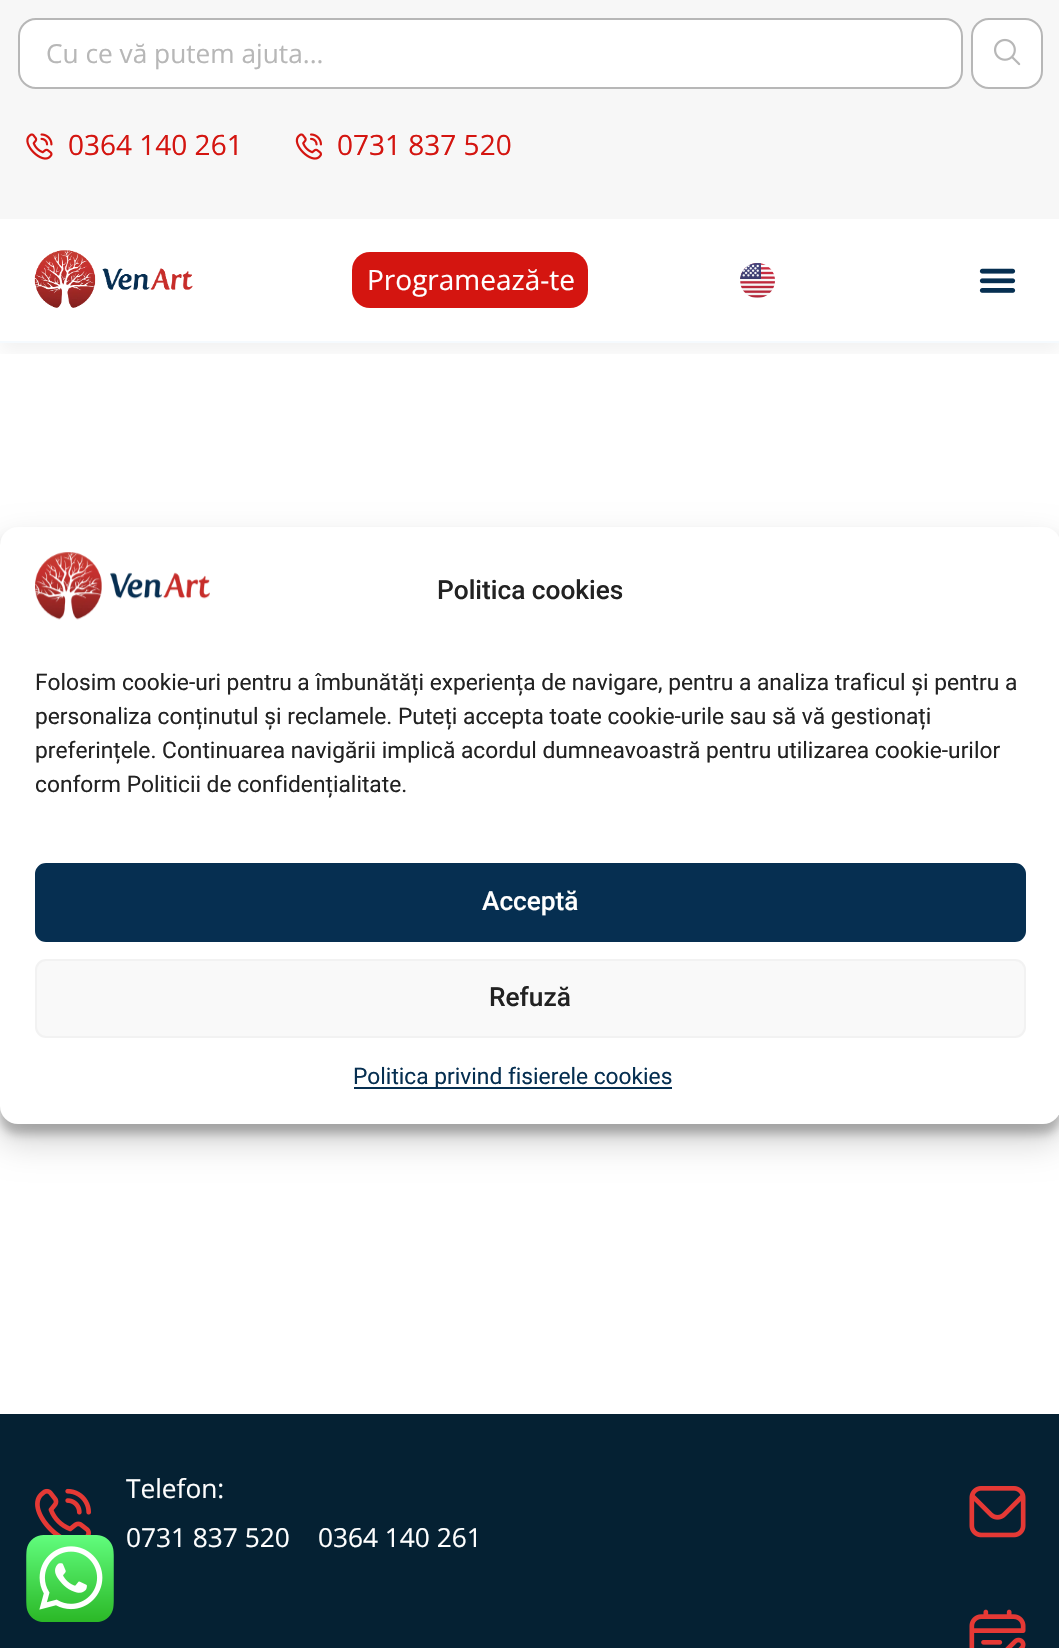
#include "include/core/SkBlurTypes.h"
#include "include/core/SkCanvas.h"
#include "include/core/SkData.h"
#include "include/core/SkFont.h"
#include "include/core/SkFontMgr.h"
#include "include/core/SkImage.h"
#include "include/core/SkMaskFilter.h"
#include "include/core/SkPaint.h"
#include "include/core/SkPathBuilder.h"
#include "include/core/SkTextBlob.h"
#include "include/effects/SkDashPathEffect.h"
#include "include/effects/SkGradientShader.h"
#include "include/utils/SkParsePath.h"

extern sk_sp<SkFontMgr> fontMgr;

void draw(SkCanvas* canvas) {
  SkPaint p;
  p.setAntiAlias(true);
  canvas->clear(SK_ColorWHITE);
  canvas->save();
  canvas->clipRect(SkRect::MakeLTRB(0, 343, 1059, 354));
  p.setColor(SkColorSetARGB(13, 0, 0, 0));
  p.setMaskFilter(SkMaskFilter::MakeBlur(kNormal_SkBlurStyle, 9));
  canvas->drawRect(SkRect::MakeLTRB(0, 228, 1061, 352), p);
  p.setMaskFilter(nullptr);
  canvas->restore();
  p.setColor(SkColorSetRGB(247, 247, 247));
  canvas->drawRect(SkRect::MakeLTRB(0, 0, 1059, 219), p);
  p.setColor(SK_ColorWHITE);
  canvas->drawRoundRect(SkRect::MakeLTRB(19, 19, 962, 88), 17, 17, p);
  p.setStyle(SkPaint::kStroke_Style);
  p.setStrokeWidth(2);
  p.setColor(SkColorSetRGB(183, 183, 183));
  canvas->drawRoundRect(SkRect::MakeLTRB(19, 19, 962, 88), 17, 17, p);
  p.setStyle(SkPaint::kFill_Style);
  p.setColor(SK_ColorWHITE);
  canvas->drawRoundRect(SkRect::MakeLTRB(972, 19, 1042, 88), 17, 17, p);
  p.setStyle(SkPaint::kStroke_Style);
  p.setColor(SkColorSetRGB(183, 183, 183));
  canvas->drawRoundRect(SkRect::MakeLTRB(972, 19, 1042, 88), 17, 17, p);
  canvas->drawImageRect(SkImages::DeferredFromEncodedData(SkData::MakeFromFileName("images/1.png")), SkRect::MakeLTRB(994, 38, 1021, 66), SkSamplingOptions());
  canvas->drawImageRect(SkImages::DeferredFromEncodedData(SkData::MakeFromFileName("images/2.png")), SkRect::MakeLTRB(26, 133, 53, 160), SkSamplingOptions());
  canvas->drawImageRect(SkImages::DeferredFromEncodedData(SkData::MakeFromFileName("images/3.png")), SkRect::MakeLTRB(295, 133, 322, 160), SkSamplingOptions());
  p.setStyle(SkPaint::kFill_Style);
  p.setColor(SkColorSetRGB(245, 250, 254));
  canvas->drawRect(SkRect::MakeLTRB(0, 341, 1059, 343), p);
  canvas->drawImageRect(SkImages::DeferredFromEncodedData(SkData::MakeFromFileName("images/4.png")), SkRect::MakeLTRB(34, 250, 193, 308), SkSamplingOptions());
  p.setColor(SkColorSetRGB(212, 21, 16));
  canvas->drawRoundRect(SkRect::MakeLTRB(352, 252, 588, 308), 18, 18, p);
  canvas->drawImageRect(SkImages::DeferredFromEncodedData(SkData::MakeFromFileName("images/5.png")), SkRect::MakeLTRB(740, 263, 775, 298), SkSamplingOptions());
  canvas->drawImageRect(SkImages::DeferredFromEncodedData(SkData::MakeFromFileName("images/6.png")), SkRect::MakeLTRB(979, 268, 1016, 293), SkSamplingOptions());
  p.setColor(SkColorSetARGB(59, 0, 0, 0));
  p.setMaskFilter(SkMaskFilter::MakeBlur(kNormal_SkBlurStyle, 5));
  canvas->drawRoundRect(SkRect::MakeLTRB(0, 537, 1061, 1134), 18, 18, p);
  p.setMaskFilter(nullptr);
  p.setColor(SkColorSetARGB(48, 0, 0, 0));
  p.setMaskFilter(SkMaskFilter::MakeBlur(kNormal_SkBlurStyle, 17.5f));
  canvas->drawRoundRect(SkRect::MakeLTRB(0, 544, 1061, 1141), 18, 18, p);
  p.setMaskFilter(nullptr);
  p.setColor(SK_ColorWHITE);
  canvas->drawRoundRect(SkRect::MakeLTRB(0, 527, 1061, 1124), 18, 18, p);
  canvas->drawImageRect(SkImages::DeferredFromEncodedData(SkData::MakeFromFileName("images/7.png")), SkRect::MakeLTRB(35, 552, 210, 620), SkSamplingOptions());
  p.setColor(SkColorSetRGB(6, 47, 81));
  canvas->drawRoundRect(SkRect::MakeLTRB(36, 864, 1025, 941), 10, 10, p);
  p.setStyle(SkPaint::kStroke_Style);
  canvas->drawRoundRect(SkRect::MakeLTRB(36, 864, 1025, 941), 10, 10, p);
  p.setStyle(SkPaint::kFill_Style);
  p.setColor(SkColorSetRGB(249, 249, 249));
  canvas->drawRoundRect(SkRect::MakeLTRB(36, 960, 1025, 1037), 10, 10, p);
  p.setStyle(SkPaint::kStroke_Style);
  p.setColor(SkColorSetRGB(242, 242, 242));
  canvas->drawRoundRect(SkRect::MakeLTRB(36, 960, 1025, 1037), 10, 10, p);
  p.setStyle(SkPaint::kFill_Style);
  p.setColor(SkColorSetRGB(6, 47, 81));
  canvas->drawRect(SkRect::MakeLTRB(354, 1087, 672, 1089), p);
  p.setColor(SkColorSetRGB(5, 33, 51));
  canvas->drawRect(SkRect::MakeLTRB(0, 1414, 1059, 1648), p);
  canvas->drawImageRect(SkImages::DeferredFromEncodedData(SkData::MakeFromFileName("images/8.png")), SkRect::MakeLTRB(35, 1488, 91, 1535), SkSamplingOptions());
  canvas->drawImageRect(SkImages::DeferredFromEncodedData(SkData::MakeFromFileName("images/9.png")), SkRect::MakeLTRB(969, 1486, 1026, 1538), SkSamplingOptions());
  canvas->drawImageRect(SkImages::DeferredFromEncodedData(SkData::MakeFromFileName("images/10.png")), SkRect::MakeLTRB(969, 1609, 1026, 1648), SkSamplingOptions());
  canvas->drawImageRect(SkImages::DeferredFromEncodedData(SkData::MakeFromFileName("images/11.png")), SkRect::MakeLTRB(26, 1535, 114, 1622), SkSamplingOptions());
  SkFont font1(fontMgr->matchFamilyStyle("Open Sans", SkFontStyle::Normal()), 26.25f);
  font1.setSubpixel(true);
  p.setColor(SkColorSetRGB(183, 183, 183));
  canvas->drawString("Cu ce vă putem ajuta...", 46, 63, font1, p);
  SkFont font2(fontMgr->matchFamilyStyle("Open Sans", SkFontStyle::Normal()), 28);
  font2.setSubpixel(true);
  p.setColor(SkColorSetRGB(212, 21, 16));
  canvas->drawString("0364 140 261", 68, 155, font2, p);
  canvas->drawString("0731 837 520", 337, 155, font2, p);
  p.setColor(SK_ColorWHITE);
  canvas->drawString("Programează-te", 367, 290, font2, p);
  SkFont font3(fontMgr->matchFamilyStyle("Roboto", SkFontStyle(500, SkFontStyle::kNormal_Width, SkFontStyle::kUpright_Slant)), 26.25f);
  font3.setSubpixel(true);
  p.setColor(SkColorSetRGB(34, 34, 34));
  canvas->drawString("Politica cookies", 437, 599, font3, p);
  SkFont font4(fontMgr->matchFamilyStyle("Roboto", SkFontStyle::Normal()), 22.75f);
  font4.setSubpixel(true);
  canvas->drawString("Folosim cookie-uri pentru a îmbunătăți experiența de navigare, pentru a analiza traficul și pentru a", 35, 690, font4, p);
  canvas->drawString("personaliza conținutul și reclamele. Puteți accepta toate cookie-urile sau să vă gestionați", 35, 724, font4, p);
  canvas->drawString("preferințele. Continuarea navigării implică acordul dumneavoastră pentru utilizarea cookie-urilor", 35, 758, font4, p);
  canvas->drawString("conform Politicii de confidențialitate.", 35, 792, font4, p);
  p.setColor(SK_ColorWHITE);
  canvas->drawString("Acceptă", 482, 910, font3, p);
  p.setColor(SkColorSetRGB(34, 34, 34));
  canvas->drawString("Refuză", 489, 1006, font3, p);
  p.setColor(SkColorSetRGB(6, 47, 81));
  canvas->drawString("Politica privind fisierele cookies", 353, 1084, font4, p);
  p.setColor(SK_ColorWHITE);
  canvas->drawString("Telefon:", 126, 1498, font1, p);
  canvas->drawString("0731 837 520", 126, 1547, font1, p);
  canvas->drawString("0364 140 261", 318, 1547, font1, p);
}
